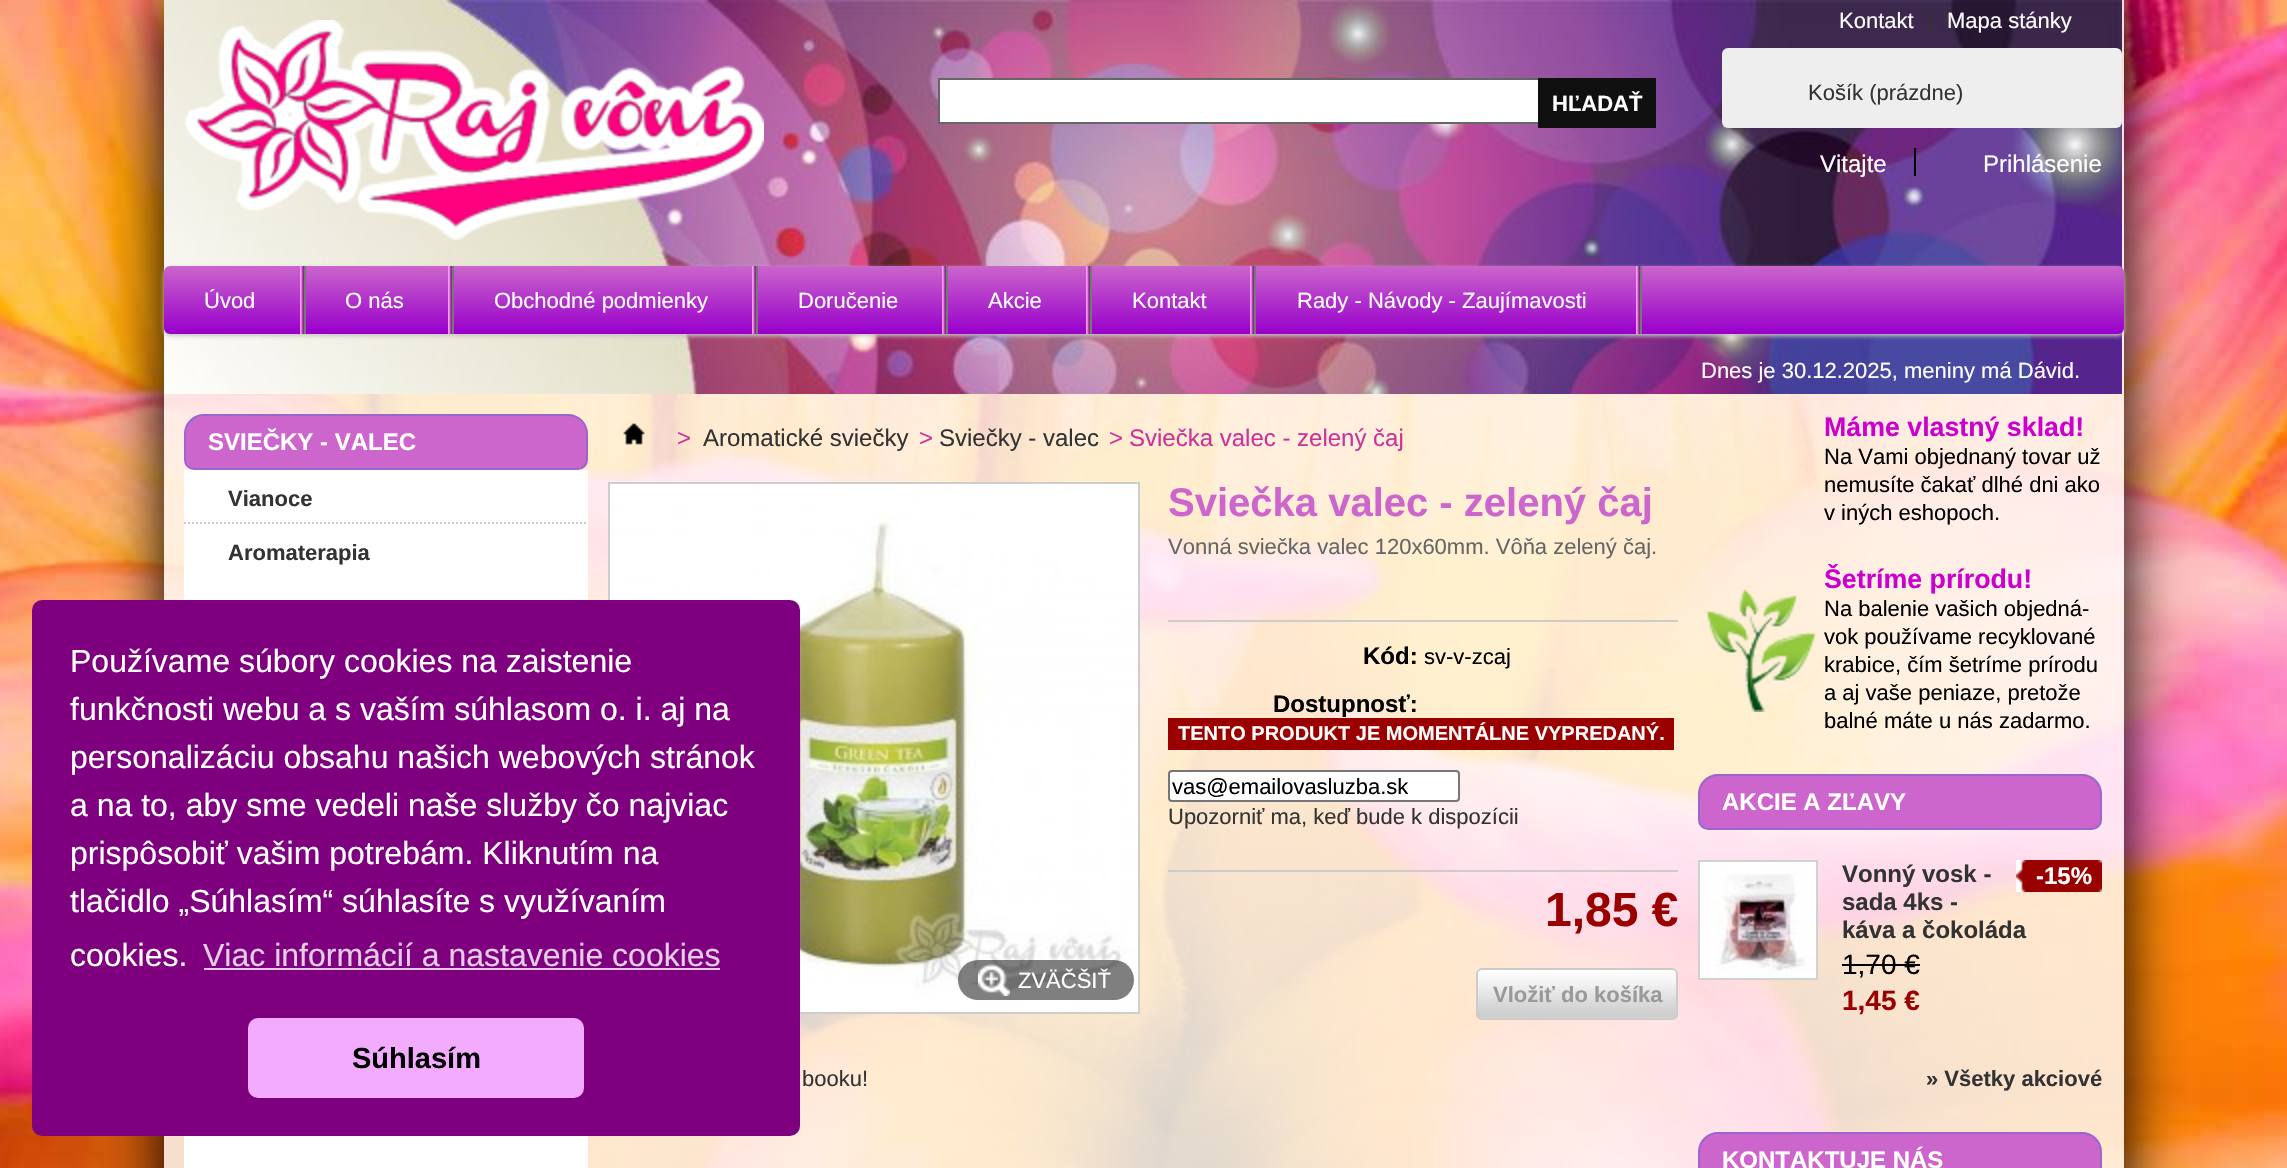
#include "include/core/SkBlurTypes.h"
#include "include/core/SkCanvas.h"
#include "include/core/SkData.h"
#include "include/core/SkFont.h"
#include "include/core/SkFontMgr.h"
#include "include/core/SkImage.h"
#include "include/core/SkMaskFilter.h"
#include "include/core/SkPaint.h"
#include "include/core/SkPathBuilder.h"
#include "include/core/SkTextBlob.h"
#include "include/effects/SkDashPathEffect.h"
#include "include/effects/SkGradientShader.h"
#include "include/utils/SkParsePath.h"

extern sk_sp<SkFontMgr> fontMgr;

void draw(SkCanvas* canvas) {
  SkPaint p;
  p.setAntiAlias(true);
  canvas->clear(SK_ColorWHITE);
  canvas->drawImageRect(SkImages::DeferredFromEncodedData(SkData::MakeFromFileName("images/1.png")), SkRect::MakeLTRB(0, 0, 2287, 1168), SkSamplingOptions());
  canvas->save();
  canvas->clipPath(SkPathBuilder(SkPathFillType::kEvenOdd).moveTo(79, 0).lineTo(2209, 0).lineTo(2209, 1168).lineTo(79, 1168).close().moveTo(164, 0).lineTo(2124, 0).lineTo(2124, 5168).lineTo(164, 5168).close().detach(), true);
  p.setColor(SK_ColorBLACK);
  p.setMaskFilter(SkMaskFilter::MakeBlur(kNormal_SkBlurStyle, 28));
  canvas->drawRect(SkRect::MakeLTRB(164, 0, 2124, 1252), p);
  p.setMaskFilter(nullptr);
  canvas->restore();
  p.setColor(SkColorSetARGB(204, 255, 255, 255));
  canvas->drawRect(SkRect::MakeLTRB(164, 0, 2124, 1168), p);
  canvas->drawImageRect(SkImages::DeferredFromEncodedData(SkData::MakeFromFileName("images/2.png")), SkRect::MakeLTRB(164, 0, 2122, 394), SkSamplingOptions());
  canvas->drawImageRect(SkImages::DeferredFromEncodedData(SkData::MakeFromFileName("images/3.png")), SkRect::MakeLTRB(184, 20, 764, 240), SkSamplingOptions());
  p.setColor(SkColorSetRGB(51, 51, 51));
  canvas->drawRect(SkRect::MakeLTRB(1930, 10, 1932, 32), p);
  p.setColor(SK_ColorWHITE);
  canvas->drawRect(SkRect::MakeLTRB(940, 80, 1538, 122), p);
  p.setColor(SkColorSetRGB(102, 102, 102));
  canvas->drawRect(SkRect::MakeLTRB(938, 78, 1538, 80), p);
  canvas->drawRect(SkRect::MakeLTRB(938, 122, 1538, 124), p);
  canvas->drawRect(SkRect::MakeLTRB(938, 78, 940, 124), p);
  p.setColor(SkColorSetRGB(16, 16, 16));
  canvas->drawRect(SkRect::MakeLTRB(1538, 78, 1656, 128), p);
  p.setColor(SkColorSetRGB(238, 238, 238));
  canvas->drawRoundRect(SkRect::MakeLTRB(1722, 48, 2122, 128), 6, 6, p);
  p.setColor(SK_ColorBLACK);
  canvas->drawRect(SkRect::MakeLTRB(1914, 148, 1916, 176), p);
  p.setColor(SkColorSetRGB(198, 198, 198));
  p.setMaskFilter(SkMaskFilter::MakeBlur(kNormal_SkBlurStyle, 2));
  canvas->drawRoundRect(SkRect::MakeLTRB(164, 268, 2124, 336), 6, 6, p);
  p.setMaskFilter(nullptr);
  canvas->drawImageRect(SkImages::DeferredFromEncodedData(SkData::MakeFromFileName("images/4.png")), SkRect::MakeLTRB(164, 266, 2124, 334), SkSamplingOptions());
  canvas->drawImageRect(SkImages::DeferredFromEncodedData(SkData::MakeFromFileName("images/5.png")), SkRect::MakeLTRB(300, 266, 304, 334), SkSamplingOptions());
  p.setColor(SkColorSetRGB(119, 119, 119));
  canvas->drawRect(SkRect::MakeLTRB(304, 266, 306, 334), p);
  canvas->drawImageRect(SkImages::DeferredFromEncodedData(SkData::MakeFromFileName("images/5.png")), SkRect::MakeLTRB(448, 266, 452, 334), SkSamplingOptions());
  canvas->drawRect(SkRect::MakeLTRB(452, 266, 454, 334), p);
  canvas->drawImageRect(SkImages::DeferredFromEncodedData(SkData::MakeFromFileName("images/5.png")), SkRect::MakeLTRB(752, 266, 756, 334), SkSamplingOptions());
  canvas->drawRect(SkRect::MakeLTRB(756, 266, 758, 334), p);
  canvas->drawImageRect(SkImages::DeferredFromEncodedData(SkData::MakeFromFileName("images/5.png")), SkRect::MakeLTRB(942, 266, 946, 334), SkSamplingOptions());
  canvas->drawRect(SkRect::MakeLTRB(946, 266, 948, 334), p);
  canvas->drawImageRect(SkImages::DeferredFromEncodedData(SkData::MakeFromFileName("images/5.png")), SkRect::MakeLTRB(1086, 266, 1090, 334), SkSamplingOptions());
  canvas->drawRect(SkRect::MakeLTRB(1090, 266, 1092, 334), p);
  canvas->drawImageRect(SkImages::DeferredFromEncodedData(SkData::MakeFromFileName("images/5.png")), SkRect::MakeLTRB(1250, 266, 1254, 334), SkSamplingOptions());
  canvas->drawRect(SkRect::MakeLTRB(1254, 266, 1256, 334), p);
  canvas->drawImageRect(SkImages::DeferredFromEncodedData(SkData::MakeFromFileName("images/5.png")), SkRect::MakeLTRB(1636, 266, 1640, 334), SkSamplingOptions());
  canvas->drawRect(SkRect::MakeLTRB(1640, 266, 1642, 334), p);
  p.setColor(SkColorSetRGB(204, 102, 204));
  canvas->drawPath(SkPathBuilder().moveTo(204, 415).lineTo(568, 415).cubicTo(578.5f, 415, 587, 423.5f, 587, 434).lineTo(587, 460).cubicTo(587, 465, 583, 469, 578, 469).lineTo(194, 469).cubicTo(189, 469, 185, 465, 185, 460).lineTo(185, 434).cubicTo(185, 423.5f, 193.5f, 415, 204, 415).close().detach(), p);
  p.setStyle(SkPaint::kStroke_Style);
  p.setStrokeWidth(2);
  p.setColor(SkColorSetRGB(153, 102, 204));
  canvas->drawPath(SkPathBuilder().moveTo(204, 415).lineTo(568, 415).cubicTo(578.5f, 415, 587, 423.5f, 587, 434).lineTo(587, 460).cubicTo(587, 465, 583, 469, 578, 469).lineTo(194, 469).cubicTo(189, 469, 185, 465, 185, 460).lineTo(185, 434).cubicTo(185, 423.5f, 193.5f, 415, 204, 415).close().detach(), p);
  p.setStyle(SkPaint::kFill_Style);
  p.setColor(SK_ColorWHITE);
  canvas->drawRect(SkRect::MakeLTRB(184, 470, 588, 1168), p);
  p.setStyle(SkPaint::kStroke_Style);
  p.setColor(SkColorSetRGB(204, 204, 204));
  p.setPathEffect(SkDashPathEffect::Make({{2, 2}}, 0));
  canvas->drawPath(SkPathBuilder().moveTo(184, 523).lineTo(588, 523).detach(), p);
  p.setPathEffect(nullptr);
  canvas->drawImageRect(SkImages::DeferredFromEncodedData(SkData::MakeFromFileName("images/6.png")), SkRect::MakeLTRB(623, 423, 645, 445), SkSamplingOptions());
  p.setStyle(SkPaint::kFill_Style);
  canvas->drawRect(SkRect::MakeLTRB(1168, 620, 1678, 622), p);
  p.setColor(SkColorSetRGB(155, 0, 0));
  canvas->drawRect(SkRect::MakeLTRB(1168, 718, 1674, 750), p);
  p.setColor(SK_ColorWHITE);
  canvas->drawRoundRect(SkRect::MakeLTRB(1169, 771, 1459, 801), 3, 3, p);
  p.setStyle(SkPaint::kStroke_Style);
  p.setColor(SkColorSetRGB(118, 118, 118));
  canvas->drawRoundRect(SkRect::MakeLTRB(1169, 771, 1459, 801), 3, 3, p);
  p.setStyle(SkPaint::kFill_Style);
  p.setColor(SkColorSetRGB(204, 204, 204));
  canvas->drawRect(SkRect::MakeLTRB(1168, 870, 1678, 872), p);
  canvas->drawImageRect(SkImages::DeferredFromEncodedData(SkData::MakeFromFileName("images/7.png")), SkRect::MakeLTRB(1476, 970, 1678, 1019), SkSamplingOptions());
  p.setStyle(SkPaint::kStroke_Style);
  canvas->drawRoundRect(SkRect::MakeLTRB(1477, 969, 1677, 1019), 5, 5, p);
  p.setColor(SkColorSetRGB(205, 205, 205));
  canvas->drawRect(SkRect::MakeLTRB(609, 483, 1139, 1013), p);
  canvas->drawImageRect(SkImages::DeferredFromEncodedData(SkData::MakeFromFileName("images/8.png")), SkRect::MakeLTRB(610, 484, 1138, 1012), SkSamplingOptions());
  p.setStyle(SkPaint::kFill_Style);
  p.setColor(SkColorSetARGB(128, 0, 0, 0));
  canvas->drawRoundRect(SkRect::MakeLTRB(958, 960, 1134, 1000), 20, 20, p);
  canvas->drawImageRect(SkImages::DeferredFromEncodedData(SkData::MakeFromFileName("images/9.png")), SkRect::MakeLTRB(978, 964, 1010, 996), SkSamplingOptions());
  canvas->drawImageRect(SkImages::DeferredFromEncodedData(SkData::MakeFromFileName("images/10.png")), SkRect::MakeLTRB(1705, 589, 1817, 712), SkSamplingOptions());
  p.setColor(SkColorSetRGB(204, 102, 204));
  canvas->drawPath(SkPathBuilder().moveTo(1718, 775).lineTo(2082, 775).cubicTo(2092.5f, 775, 2101, 783.5f, 2101, 794).lineTo(2101, 820).cubicTo(2101, 825, 2097, 829, 2092, 829).lineTo(1708, 829).cubicTo(1703, 829, 1699, 825, 1699, 820).lineTo(1699, 794).cubicTo(1699, 783.5f, 1707.5f, 775, 1718, 775).close().detach(), p);
  p.setStyle(SkPaint::kStroke_Style);
  p.setColor(SkColorSetRGB(153, 102, 204));
  canvas->drawPath(SkPathBuilder().moveTo(1718, 775).lineTo(2082, 775).cubicTo(2092.5f, 775, 2101, 783.5f, 2101, 794).lineTo(2101, 820).cubicTo(2101, 825, 2097, 829, 2092, 829).lineTo(1708, 829).cubicTo(1703, 829, 1699, 825, 1699, 820).lineTo(1699, 794).cubicTo(1699, 783.5f, 1707.5f, 775, 1718, 775).close().detach(), p);
  p.setColor(SkColorSetRGB(209, 209, 209));
  canvas->drawRect(SkRect::MakeLTRB(1699, 861, 1817, 979), p);
  canvas->drawImageRect(SkImages::DeferredFromEncodedData(SkData::MakeFromFileName("images/11.png")), SkRect::MakeLTRB(1700, 862, 1816, 978), SkSamplingOptions());
  canvas->drawImageRect(SkImages::DeferredFromEncodedData(SkData::MakeFromFileName("images/12.png")), SkRect::MakeLTRB(2016, 860, 2097, 892), SkSamplingOptions());
  canvas->drawImageRect(SkImages::DeferredFromEncodedData(SkData::MakeFromFileName("images/13.png")), SkRect::MakeLTRB(2097, 860, 2102, 892), SkSamplingOptions());
  p.setStyle(SkPaint::kFill_Style);
  p.setColor(SK_ColorBLACK);
  canvas->drawRect(SkRect::MakeLTRB(1842, 964, 1920, 966), p);
  p.setColor(SkColorSetRGB(204, 102, 204));
  canvas->drawPath(SkPathBuilder().moveTo(1718, 1133).lineTo(2082, 1133).cubicTo(2092.5f, 1133, 2101, 1141.5f, 2101, 1152).lineTo(2101, 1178).cubicTo(2101, 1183, 2097, 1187, 2092, 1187).lineTo(1708, 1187).cubicTo(1703, 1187, 1699, 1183, 1699, 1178).lineTo(1699, 1152).cubicTo(1699, 1141.5f, 1707.5f, 1133, 1718, 1133).close().detach(), p);
  p.setStyle(SkPaint::kStroke_Style);
  p.setColor(SkColorSetRGB(153, 102, 204));
  canvas->drawPath(SkPathBuilder().moveTo(1718, 1133).lineTo(2082, 1133).cubicTo(2092.5f, 1133, 2101, 1141.5f, 2101, 1152).lineTo(2101, 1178).cubicTo(2101, 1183, 2097, 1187, 2092, 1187).lineTo(1708, 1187).cubicTo(1703, 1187, 1699, 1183, 1699, 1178).lineTo(1699, 1152).cubicTo(1699, 1141.5f, 1707.5f, 1133, 1718, 1133).close().detach(), p);
  p.setStyle(SkPaint::kFill_Style);
  p.setColor(SkColorSetRGB(126, 0, 127));
  canvas->drawRoundRect(SkRect::MakeLTRB(32, 600, 800, 1136), 10, 10, p);
  p.setColor(SkColorSetRGB(229, 204, 229));
  canvas->drawRect(SkRect::MakeLTRB(204, 968, 720, 970), p);
  p.setColor(SkColorSetRGB(242, 171, 255));
  canvas->drawRoundRect(SkRect::MakeLTRB(248, 1018, 584, 1098), 10, 10, p);
  SkFont font1(fontMgr->matchFamilyStyle("Liberation Sans", SkFontStyle::Normal()), 22);
  font1.setSubpixel(true);
  p.setColor(SK_ColorWHITE);
  canvas->drawString("Kontakt", 1839, 28, font1, p);
  canvas->drawString("Mapa stánky", 1947, 28, font1, p);
  SkFont font2(fontMgr->matchFamilyStyle("Liberation Sans", SkFontStyle::Bold()), 22);
  font2.setSubpixel(true);
  canvas->drawString("HĽADAŤ", 1552, 111, font2, p);
  p.setColor(SkColorSetRGB(51, 51, 51));
  canvas->drawString("Košík (prázdne)", 1808, 100, font1, p);
  SkFont font3(fontMgr->matchFamilyStyle("Liberation Sans", SkFontStyle::Normal()), 24);
  font3.setSubpixel(true);
  p.setColor(SK_ColorWHITE);
  canvas->drawString("Vitajte", 1820, 172, font3, p);
  canvas->drawString("Prihlásenie", 1983, 172, font3, p);
  canvas->drawString("Úvod", 204, 308, font1, p);
  canvas->drawString("O nás", 345, 308, font1, p);
  canvas->drawString("Obchodné podmienky", 494, 308, font1, p);
  canvas->drawString("Doručenie", 798, 308, font1, p);
  canvas->drawString("Akcie", 988, 308, font1, p);
  canvas->drawString("Kontakt", 1132, 308, font1, p);
  canvas->drawString("Rady - Návody - Zaujímavosti", 1297, 308, font1, p);
  canvas->drawString("Dnes je 30.12.2025, meniny má Dávid.", 1701, 378, font1, p);
  SkFont font4(fontMgr->matchFamilyStyle("Liberation Sans", SkFontStyle::Bold()), 24);
  font4.setSubpixel(true);
  canvas->drawString("SVIEČKY - VALEC", 208, 450, font4, p);
  p.setColor(SkColorSetRGB(51, 51, 51));
  canvas->drawString("Vianoce", 228, 506, font2, p);
  canvas->drawString("Aromaterapia", 228, 560, font2, p);
  p.setColor(SkColorSetRGB(204, 51, 153));
  canvas->drawString(">", 677, 446, font3, p);
  p.setColor(SkColorSetRGB(51, 51, 51));
  canvas->drawString("Aromatické sviečky", 703, 446, font3, p);
  p.setColor(SkColorSetRGB(204, 51, 153));
  canvas->drawString(">", 919, 446, font3, p);
  p.setColor(SkColorSetRGB(51, 51, 51));
  canvas->drawString("Sviečky - valec", 939, 446, font3, p);
  p.setColor(SkColorSetRGB(204, 51, 153));
  canvas->drawString(">", 1109, 446, font3, p);
  canvas->drawString("Sviečka valec - zelený čaj", 1129, 446, font3, p);
  SkFont font5(fontMgr->matchFamilyStyle("Liberation Sans", SkFontStyle::Bold()), 40);
  font5.setSubpixel(true);
  p.setColor(SkColorSetRGB(204, 102, 204));
  canvas->drawString("Sviečka valec - zelený čaj", 1168, 516, font5, p);
  p.setColor(SkColorSetRGB(102, 102, 102));
  canvas->drawString("Vonná sviečka valec 120x60mm. Vôňa zelený čaj.", 1168, 554, font1, p);
  p.setColor(SK_ColorBLACK);
  canvas->drawString("Kód:", 1363, 664, font4, p);
  canvas->drawString("sv-v-zcaj", 1424, 664, font1, p);
  canvas->drawString("Dostupnosť:", 1273, 712, font4, p);
  SkFont font6(fontMgr->matchFamilyStyle("Liberation Sans", SkFontStyle::Bold()), 20);
  font6.setSubpixel(true);
  p.setColor(SK_ColorWHITE);
  canvas->drawString("TENTO PRODUKT JE MOMENTÁLNE VYPREDANÝ.", 1178, 740, font6, p);
  p.setColor(SK_ColorBLACK);
  canvas->drawString("vas@emailovasluzba.sk", 1172, 794, font1, p);
  p.setColor(SkColorSetRGB(51, 51, 51));
  canvas->drawString("Upozorniť ma, keď bude k dispozícii", 1168, 824, font1, p);
  SkFont font7(fontMgr->matchFamilyStyle("Liberation Sans", SkFontStyle::Bold()), 48);
  font7.setSubpixel(true);
  p.setColor(SkColorSetRGB(155, 0, 0));
  canvas->drawString("1,85 €", 1545, 926, font7, p);
  p.setColor(SkColorSetRGB(153, 153, 153));
  canvas->drawString("Vložiť do košíka", 1493, 1002, font2, p);
  p.setColor(SK_ColorWHITE);
  canvas->drawString("ZVÄČŠIŤ", 1018, 988, font1, p);
  p.setColor(SkColorSetRGB(51, 51, 51));
  canvas->drawString("booku!", 802, 1086, font1, p);
  SkFont font8(fontMgr->matchFamilyStyle("Liberation Sans", SkFontStyle::Bold()), 26.75f);
  font8.setSubpixel(true);
  p.setColor(SkColorSetRGB(204, 0, 204));
  canvas->drawString("Máme vlastný sklad!", 1824, 436, font8, p);
  p.setColor(SK_ColorBLACK);
  canvas->drawString("Na Vami objednaný tovar už", 1824, 464, font1, p);
  canvas->drawString("nemusíte čakať dlhé dni ako", 1824, 492, font1, p);
  canvas->drawString("v iných eshopoch.", 1824, 520, font1, p);
  p.setColor(SkColorSetRGB(204, 0, 204));
  canvas->drawString("Šetríme prírodu!", 1824, 588, font8, p);
  p.setColor(SK_ColorBLACK);
  canvas->drawString("Na balenie vašich objedná-", 1824, 616, font1, p);
  canvas->drawString("vok používame recyklované", 1824, 644, font1, p);
  canvas->drawString("krabice, čím šetríme prírodu", 1824, 672, font1, p);
  canvas->drawString("a aj vaše peniaze, pretože", 1824, 700, font1, p);
  canvas->drawString("balné máte u nás zadarmo.", 1824, 728, font1, p);
  p.setColor(SK_ColorWHITE);
  canvas->drawString("AKCIE A ZĽAVY", 1722, 810, font4, p);
  p.setColor(SkColorSetRGB(51, 51, 51));
  canvas->drawString("Vonný vosk -", 1842, 882, font4, p);
  canvas->drawString("sada 4ks -", 1842, 910, font4, p);
  canvas->drawString("káva a čokoláda", 1842, 938, font4, p);
  p.setColor(SK_ColorWHITE);
  canvas->drawString("-15%", 2036, 884, font4, p);
  SkFont font9(fontMgr->matchFamilyStyle("Liberation Sans", SkFontStyle::Normal()), 28);
  font9.setSubpixel(true);
  p.setColor(SK_ColorBLACK);
  canvas->drawString("1,70 €", 1842, 974, font9, p);
  SkFont font10(fontMgr->matchFamilyStyle("Liberation Sans", SkFontStyle::Bold()), 28);
  font10.setSubpixel(true);
  p.setColor(SkColorSetRGB(155, 0, 0));
  canvas->drawString("1,45 €", 1842, 1010, font10, p);
  p.setColor(SkColorSetRGB(51, 51, 51));
  canvas->drawString("» Všetky akciové", 1926, 1086, font2, p);
  p.setColor(SK_ColorWHITE);
  canvas->drawString("KONTAKTUJE NÁS", 1722, 1168, font4, p);
  SkFont font11(fontMgr->matchFamilyStyle("Liberation Sans", SkFontStyle::Normal()), 32);
  font11.setSubpixel(true);
  canvas->drawString("Používame súbory cookies na zaistenie", 70, 672, font11, p);
  canvas->drawString("funkčnosti webu a s vaším súhlasom o. i. aj na", 70, 720, font11, p);
  canvas->drawString("personalizáciu obsahu našich webových stránok", 70, 768, font11, p);
  canvas->drawString("a na to, aby sme vedeli naše služby čo najviac", 70, 816, font11, p);
  canvas->drawString("prispôsobiť vašim potrebám. Kliknutím na", 70, 864, font11, p);
  canvas->drawString("tlačidlo „Súhlasím“ súhlasíte s využívaním", 70, 912, font11, p);
  canvas->drawString("cookies.", 70, 966, font11, p);
  p.setColor(SkColorSetRGB(229, 204, 229));
  canvas->drawString("Viac informácií a nastavenie cookies", 203, 966, font11, p);
  SkFont font12(fontMgr->matchFamilyStyle("Liberation Sans", SkFontStyle::Bold()), 29);
  font12.setSubpixel(true);
  p.setColor(SK_ColorBLACK);
  canvas->drawString("Súhlasím", 352, 1068, font12, p);
}
